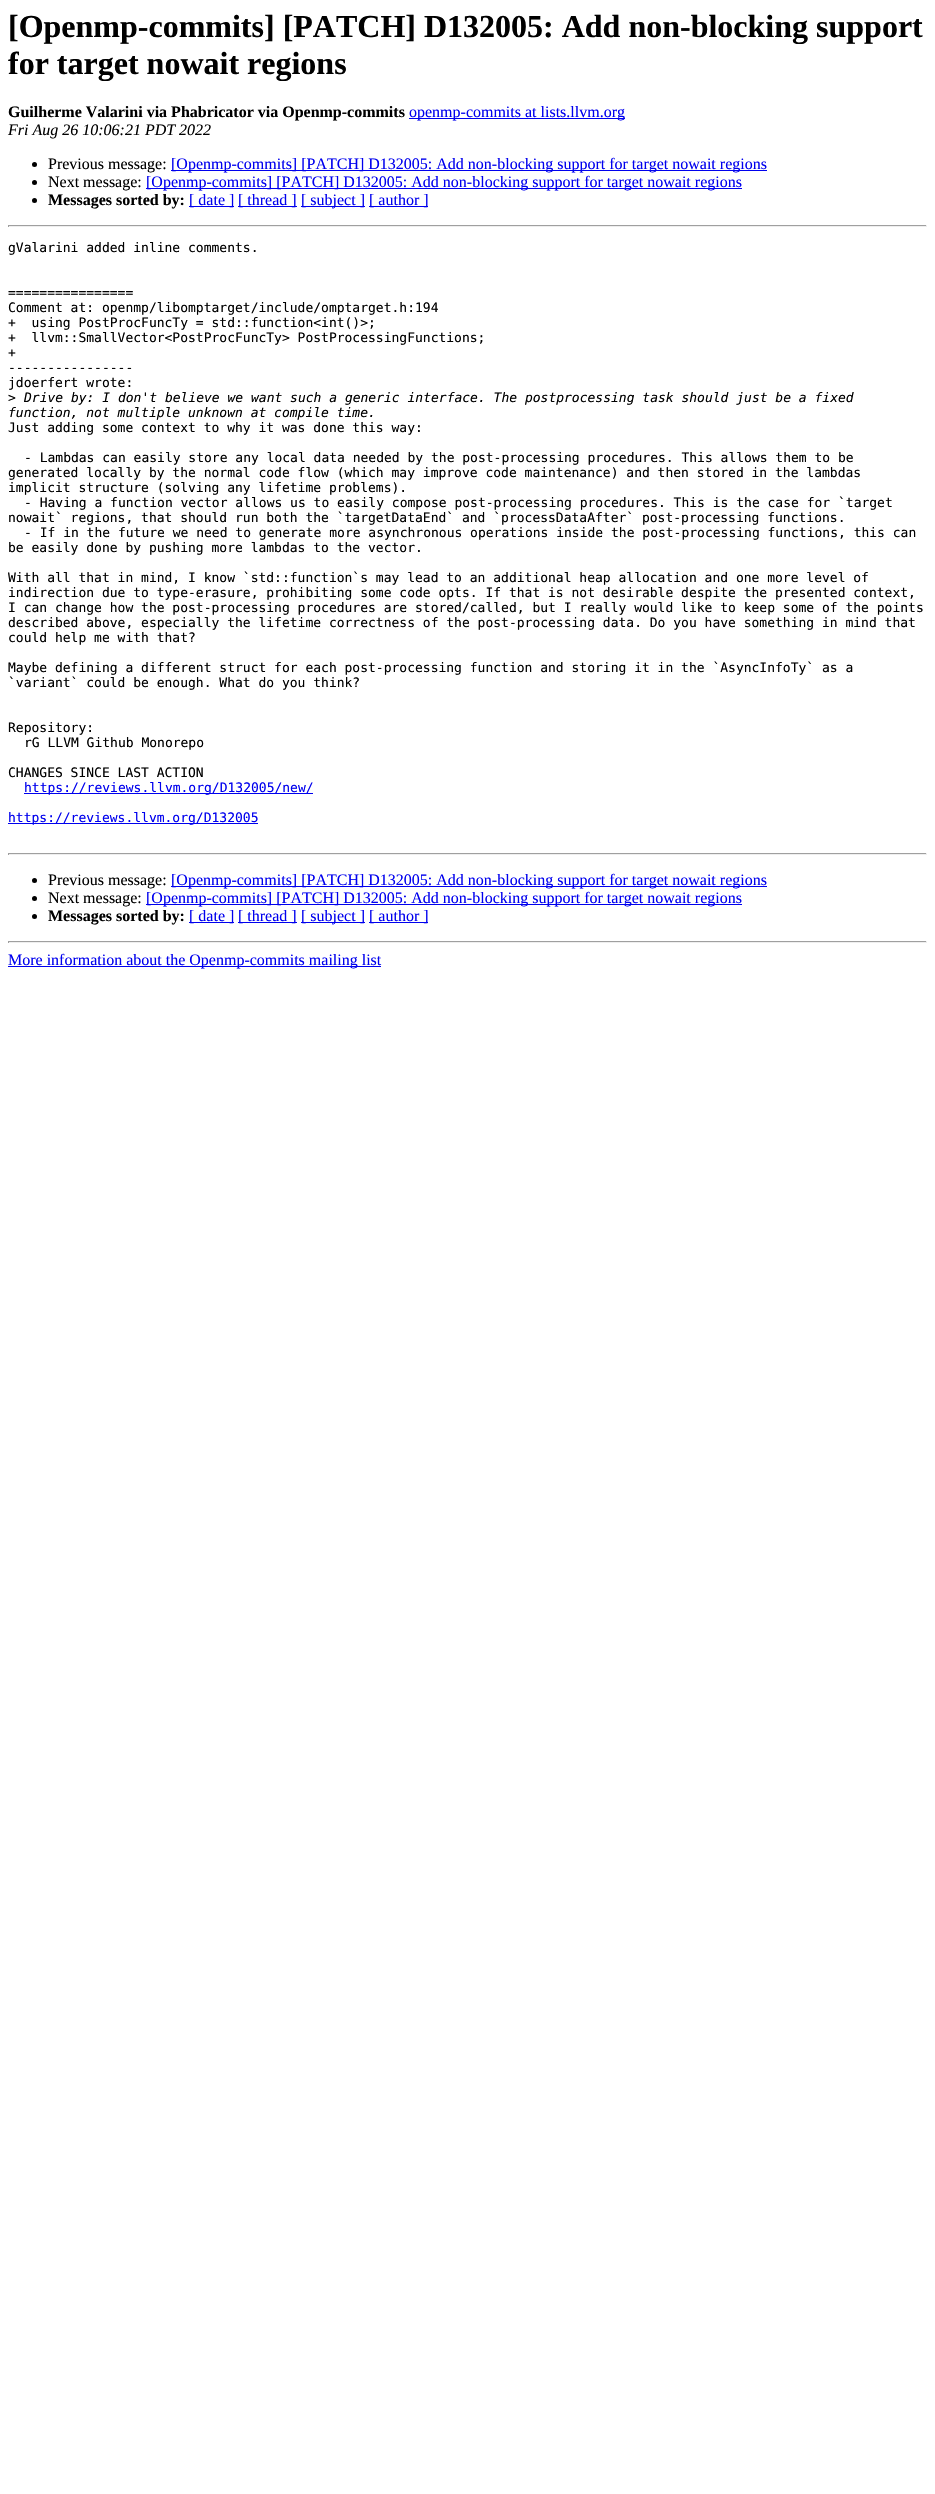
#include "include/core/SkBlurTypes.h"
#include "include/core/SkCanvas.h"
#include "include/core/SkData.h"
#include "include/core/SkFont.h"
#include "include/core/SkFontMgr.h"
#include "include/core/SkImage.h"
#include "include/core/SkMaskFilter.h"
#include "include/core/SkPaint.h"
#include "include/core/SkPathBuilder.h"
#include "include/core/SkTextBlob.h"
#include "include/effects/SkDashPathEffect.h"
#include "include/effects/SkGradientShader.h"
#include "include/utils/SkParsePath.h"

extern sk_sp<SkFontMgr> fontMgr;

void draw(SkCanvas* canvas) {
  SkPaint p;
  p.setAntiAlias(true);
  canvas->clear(SK_ColorWHITE);
  p.setColor(SkColorSetRGB(0, 0, 238));
  canvas->drawRect(SkRect::MakeLTRB(409, 118, 625, 119), p);
  p.setColor(SK_ColorBLACK);
  canvas->drawCircle(34.5f, 164.5f, 2.5f, p);
  p.setColor(SkColorSetRGB(0, 0, 238));
  canvas->drawRect(SkRect::MakeLTRB(171, 170, 767, 171), p);
  p.setColor(SK_ColorBLACK);
  canvas->drawCircle(34.5f, 182.5f, 2.5f, p);
  p.setColor(SkColorSetRGB(0, 0, 238));
  canvas->drawRect(SkRect::MakeLTRB(146, 188, 742, 189), p);
  p.setColor(SK_ColorBLACK);
  canvas->drawCircle(34.5f, 200.5f, 2.5f, p);
  p.setColor(SkColorSetRGB(0, 0, 238));
  canvas->drawRect(SkRect::MakeLTRB(189, 206, 234, 207), p);
  canvas->drawRect(SkRect::MakeLTRB(238, 206, 297, 207), p);
  canvas->drawRect(SkRect::MakeLTRB(301, 206, 365, 207), p);
  canvas->drawRect(SkRect::MakeLTRB(369, 206, 428, 207), p);
  p.setColor(SkColorSetRGB(159, 159, 159));
  canvas->drawRect(SkRect::MakeLTRB(8, 225, 927, 226), p);
  p.setColor(SkColorSetRGB(238, 238, 238));
  canvas->drawRect(SkRect::MakeLTRB(926, 225, 927, 227), p);
  canvas->drawRect(SkRect::MakeLTRB(8, 226, 927, 227), p);
  p.setColor(SkColorSetRGB(159, 159, 159));
  canvas->drawRect(SkRect::MakeLTRB(8, 225, 9, 227), p);
  p.setColor(SkColorSetRGB(0, 0, 238));
  canvas->drawRect(SkRect::MakeLTRB(24, 793, 313, 794), p);
  canvas->drawRect(SkRect::MakeLTRB(8, 823, 258, 824), p);
  p.setColor(SkColorSetRGB(159, 159, 159));
  canvas->drawRect(SkRect::MakeLTRB(8, 853, 927, 854), p);
  p.setColor(SkColorSetRGB(238, 238, 238));
  canvas->drawRect(SkRect::MakeLTRB(926, 853, 927, 855), p);
  canvas->drawRect(SkRect::MakeLTRB(8, 854, 927, 855), p);
  p.setColor(SkColorSetRGB(159, 159, 159));
  canvas->drawRect(SkRect::MakeLTRB(8, 853, 9, 855), p);
  p.setColor(SK_ColorBLACK);
  canvas->drawCircle(34.5f, 880.5f, 2.5f, p);
  p.setColor(SkColorSetRGB(0, 0, 238));
  canvas->drawRect(SkRect::MakeLTRB(171, 886, 767, 887), p);
  p.setColor(SK_ColorBLACK);
  canvas->drawCircle(34.5f, 898.5f, 2.5f, p);
  p.setColor(SkColorSetRGB(0, 0, 238));
  canvas->drawRect(SkRect::MakeLTRB(146, 904, 742, 905), p);
  p.setColor(SK_ColorBLACK);
  canvas->drawCircle(34.5f, 916.5f, 2.5f, p);
  p.setColor(SkColorSetRGB(0, 0, 238));
  canvas->drawRect(SkRect::MakeLTRB(189, 922, 234, 923), p);
  canvas->drawRect(SkRect::MakeLTRB(238, 922, 297, 923), p);
  canvas->drawRect(SkRect::MakeLTRB(301, 922, 365, 923), p);
  canvas->drawRect(SkRect::MakeLTRB(369, 922, 428, 923), p);
  p.setColor(SkColorSetRGB(159, 159, 159));
  canvas->drawRect(SkRect::MakeLTRB(8, 941, 927, 942), p);
  p.setColor(SkColorSetRGB(238, 238, 238));
  canvas->drawRect(SkRect::MakeLTRB(926, 941, 927, 943), p);
  canvas->drawRect(SkRect::MakeLTRB(8, 942, 927, 943), p);
  p.setColor(SkColorSetRGB(159, 159, 159));
  canvas->drawRect(SkRect::MakeLTRB(8, 941, 9, 943), p);
  p.setColor(SkColorSetRGB(0, 0, 238));
  canvas->drawRect(SkRect::MakeLTRB(8, 966, 381, 967), p);
  SkFont font1(fontMgr->matchFamilyStyle("Liberation Serif", SkFontStyle::Bold()), 32);
  font1.setSubpixel(true);
  p.setColor(SK_ColorBLACK);
  canvas->drawString("[Openmp-commits] [PATCH] D132005: Add non-blocking support", 8, 37, font1, p);
  canvas->drawString("for target nowait regions", 8, 74, font1, p);
  SkFont font2(fontMgr->matchFamilyStyle("Liberation Serif", SkFontStyle::Bold()), 16);
  font2.setSubpixel(true);
  canvas->drawString("Guilherme Valarini via Phabricator via Openmp-commits", 8, 117, font2, p);
  SkFont font3(fontMgr->matchFamilyStyle("Liberation Serif", SkFontStyle::Normal()), 16);
  font3.setSubpixel(true);
  p.setColor(SkColorSetRGB(0, 0, 238));
  canvas->drawString("openmp-commits at lists.llvm.org", 409, 117, font3, p);
  SkFont font4(fontMgr->matchFamilyStyle("Liberation Serif", SkFontStyle::Italic()), 16);
  font4.setSubpixel(true);
  p.setColor(SK_ColorBLACK);
  canvas->drawString("Fri Aug 26 10:06:21 PDT 2022", 8, 135, font4, p);
  canvas->drawString("Previous message:", 48, 169, font3, p);
  p.setColor(SkColorSetRGB(0, 0, 238));
  canvas->drawString("[Openmp-commits] [PATCH] D132005: Add non-blocking support for target nowait regions", 171, 169, font3, p);
  p.setColor(SK_ColorBLACK);
  canvas->drawString("Next message:", 48, 187, font3, p);
  p.setColor(SkColorSetRGB(0, 0, 238));
  canvas->drawString("[Openmp-commits] [PATCH] D132005: Add non-blocking support for target nowait regions", 146, 187, font3, p);
  p.setColor(SK_ColorBLACK);
  canvas->drawString("Messages sorted by:", 48, 205, font2, p);
  p.setColor(SkColorSetRGB(0, 0, 238));
  canvas->drawString("[ date ]", 189, 205, font3, p);
  canvas->drawString("[ thread ]", 238, 205, font3, p);
  canvas->drawString("[ subject ]", 301, 205, font3, p);
  canvas->drawString("[ author ]", 369, 205, font3, p);
  SkFont font5(fontMgr->matchFamilyStyle("DejaVu Sans Mono", SkFontStyle::Normal()), 13);
  font5.setSubpixel(true);
  p.setColor(SK_ColorBLACK);
  canvas->drawString("gValarini added inline comments.", 8, 252, font5, p);
  canvas->drawString("================", 8, 297, font5, p);
  canvas->drawString("Comment at: openmp/libomptarget/include/omptarget.h:194", 8, 312, font5, p);
  canvas->drawString("+  using PostProcFuncTy = std::function<int()>;", 8, 327, font5, p);
  canvas->drawString("+  llvm::SmallVector<PostProcFuncTy> PostProcessingFunctions;", 8, 342, font5, p);
  canvas->drawString("+", 8, 357, font5, p);
  canvas->drawString("----------------", 8, 372, font5, p);
  canvas->drawString("jdoerfert wrote:", 8, 387, font5, p);
  canvas->drawString(">", 8, 402, font5, p);
  SkFont font6(fontMgr->matchFamilyStyle("DejaVu Sans Mono", SkFontStyle::Italic()), 13);
  font6.setSubpixel(true);
  canvas->drawString("Drive by: I don't believe we want such a generic interface. The postprocessing task should just be a fixed", 24, 402, font6, p);
  canvas->drawString("function, not multiple unknown at compile time.", 8, 417, font6, p);
  canvas->drawString("Just adding some context to why it was done this way:", 8, 432, font5, p);
  canvas->drawString("- Lambdas can easily store any local data needed by the post-processing procedures. This allows them to be", 24, 462, font5, p);
  canvas->drawString("generated locally by the normal code flow (which may improve code maintenance) and then stored in the lambdas", 8, 477, font5, p);
  canvas->drawString("implicit structure (solving any lifetime problems).", 8, 492, font5, p);
  canvas->drawString("- Having a function vector allows us to easily compose post-processing procedures. This is the case for `target", 24, 507, font5, p);
  canvas->drawString("nowait` regions, that should run both the `targetDataEnd` and `processDataAfter` post-processing functions.", 8, 522, font5, p);
  canvas->drawString("- If in the future we need to generate more asynchronous operations inside the post-processing functions, this can", 24, 537, font5, p);
  canvas->drawString("be easily done by pushing more lambdas to the vector.", 8, 552, font5, p);
  canvas->drawString("With all that in mind, I know `std::function`s may lead to an additional heap allocation and one more level of", 8, 582, font5, p);
  canvas->drawString("indirection due to type-erasure, prohibiting some code opts. If that is not desirable despite the presented context,", 8, 597, font5, p);
  canvas->drawString("I can change how the post-processing procedures are stored/called, but I really would like to keep some of the points", 8, 612, font5, p);
  canvas->drawString("described above, especially the lifetime correctness of the post-processing data. Do you have something in mind that", 8, 627, font5, p);
  canvas->drawString("could help me with that?", 8, 642, font5, p);
  canvas->drawString("Maybe defining a different struct for each post-processing function and storing it in the `AsyncInfoTy` as a", 8, 672, font5, p);
  canvas->drawString("`variant` could be enough. What do you think?", 8, 687, font5, p);
  canvas->drawString("Repository:", 8, 732, font5, p);
  canvas->drawString("rG LLVM Github Monorepo", 24, 747, font5, p);
  canvas->drawString("CHANGES SINCE LAST ACTION", 8, 777, font5, p);
  p.setColor(SkColorSetRGB(0, 0, 238));
  canvas->drawString("https://reviews.llvm.org/D132005/new/", 24, 792, font5, p);
  canvas->drawString("https://reviews.llvm.org/D132005", 8, 822, font5, p);
  p.setColor(SK_ColorBLACK);
  canvas->drawString("Previous message:", 48, 885, font3, p);
  p.setColor(SkColorSetRGB(0, 0, 238));
  canvas->drawString("[Openmp-commits] [PATCH] D132005: Add non-blocking support for target nowait regions", 171, 885, font3, p);
  p.setColor(SK_ColorBLACK);
  canvas->drawString("Next message:", 48, 903, font3, p);
  p.setColor(SkColorSetRGB(0, 0, 238));
  canvas->drawString("[Openmp-commits] [PATCH] D132005: Add non-blocking support for target nowait regions", 146, 903, font3, p);
  p.setColor(SK_ColorBLACK);
  canvas->drawString("Messages sorted by:", 48, 921, font2, p);
  p.setColor(SkColorSetRGB(0, 0, 238));
  canvas->drawString("[ date ]", 189, 921, font3, p);
  canvas->drawString("[ thread ]", 238, 921, font3, p);
  canvas->drawString("[ subject ]", 301, 921, font3, p);
  canvas->drawString("[ author ]", 369, 921, font3, p);
  canvas->drawString("More information about the Openmp-commits mailing list", 8, 965, font3, p);
}
